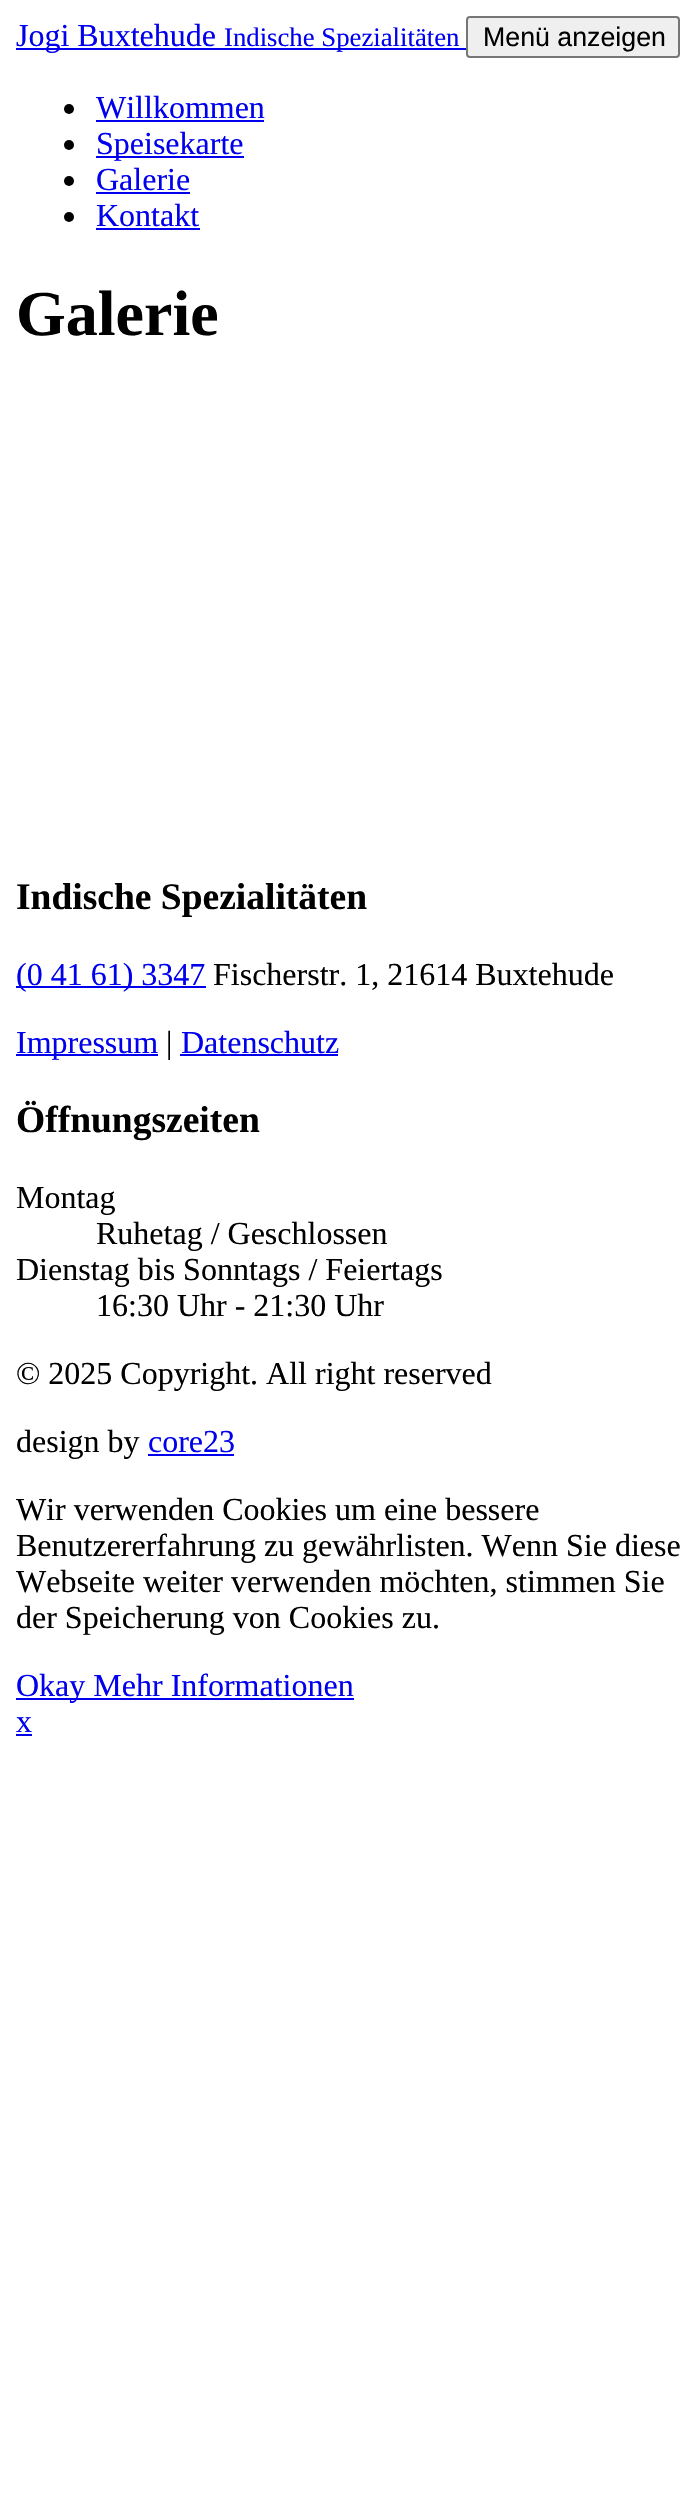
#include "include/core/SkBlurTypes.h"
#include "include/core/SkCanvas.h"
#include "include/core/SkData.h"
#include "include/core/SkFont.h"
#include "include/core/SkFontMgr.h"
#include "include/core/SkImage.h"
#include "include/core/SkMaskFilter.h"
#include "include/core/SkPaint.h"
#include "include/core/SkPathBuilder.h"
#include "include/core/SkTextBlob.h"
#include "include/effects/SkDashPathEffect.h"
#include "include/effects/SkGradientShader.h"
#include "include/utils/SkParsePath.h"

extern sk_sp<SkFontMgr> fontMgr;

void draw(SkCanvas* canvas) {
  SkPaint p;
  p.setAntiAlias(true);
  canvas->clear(SK_ColorWHITE);
  p.setColor(SkColorSetRGB(0, 0, 238));
  canvas->drawRect(SkRect::MakeLTRB(16, 48, 458, 50), p);
  canvas->drawRect(SkRect::MakeLTRB(458, 48, 466, 50), p);
  p.setColor(SkColorSetRGB(239, 239, 239));
  canvas->drawRoundRect(SkRect::MakeLTRB(467, 17, 679, 57), 3, 3, p);
  p.setStyle(SkPaint::kStroke_Style);
  p.setStrokeWidth(2);
  p.setColor(SkColorSetRGB(118, 118, 118));
  canvas->drawRoundRect(SkRect::MakeLTRB(467, 17, 679, 57), 3, 3, p);
  p.setStyle(SkPaint::kFill_Style);
  p.setColor(SK_ColorBLACK);
  canvas->drawCircle(69, 109, 5, p);
  p.setColor(SkColorSetRGB(0, 0, 238));
  canvas->drawRect(SkRect::MakeLTRB(96, 120, 264, 122), p);
  p.setColor(SK_ColorBLACK);
  canvas->drawCircle(69, 145, 5, p);
  p.setColor(SkColorSetRGB(0, 0, 238));
  canvas->drawRect(SkRect::MakeLTRB(96, 156, 244, 158), p);
  p.setColor(SK_ColorBLACK);
  canvas->drawCircle(69, 181, 5, p);
  p.setColor(SkColorSetRGB(0, 0, 238));
  canvas->drawRect(SkRect::MakeLTRB(96, 192, 190, 194), p);
  p.setColor(SK_ColorBLACK);
  canvas->drawCircle(69, 217, 5, p);
  p.setColor(SkColorSetRGB(0, 0, 238));
  canvas->drawRect(SkRect::MakeLTRB(96, 228, 200, 230), p);
  canvas->drawRect(SkRect::MakeLTRB(16, 986, 206, 988), p);
  canvas->drawRect(SkRect::MakeLTRB(16, 1054, 158, 1056), p);
  canvas->drawRect(SkRect::MakeLTRB(180, 1054, 338, 1056), p);
  canvas->drawRect(SkRect::MakeLTRB(148, 1454, 234, 1456), p);
  canvas->drawRect(SkRect::MakeLTRB(16, 1698, 354, 1700), p);
  canvas->drawRect(SkRect::MakeLTRB(16, 1734, 32, 1736), p);
  SkFont font1(fontMgr->matchFamilyStyle("Liberation Serif", SkFontStyle::Normal()), 32);
  font1.setSubpixel(true);
  canvas->drawString("Jogi Buxtehude", 16, 46, font1, p);
  SkFont font2(fontMgr->matchFamilyStyle("Liberation Serif", SkFontStyle::Normal()), 26.75f);
  font2.setSubpixel(true);
  canvas->drawString("Indische Spezialitäten", 224, 46, font2, p);
  SkFont font3(fontMgr->matchFamilyStyle("Liberation Sans", SkFontStyle::Normal()), 26.75f);
  font3.setSubpixel(true);
  p.setColor(SK_ColorBLACK);
  canvas->drawString("Menü anzeigen", 483, 46, font3, p);
  p.setColor(SkColorSetRGB(0, 0, 238));
  canvas->drawString("Willkommen", 96, 118, font1, p);
  canvas->drawString("Speisekarte", 96, 154, font1, p);
  canvas->drawString("Galerie", 96, 190, font1, p);
  canvas->drawString("Kontakt", 96, 226, font1, p);
  SkFont font4(fontMgr->matchFamilyStyle("Liberation Serif", SkFontStyle::Bold()), 64);
  font4.setSubpixel(true);
  p.setColor(SK_ColorBLACK);
  canvas->drawString("Galerie", 16, 335, font4, p);
  SkFont font5(fontMgr->matchFamilyStyle("Liberation Serif", SkFontStyle::Bold()), 37.5f);
  font5.setSubpixel(true);
  canvas->drawString("Indische Spezialitäten", 16, 909, font5, p);
  p.setColor(SkColorSetRGB(0, 0, 238));
  canvas->drawString("(0 41 61) 3347", 16, 985, font1, p);
  p.setColor(SK_ColorBLACK);
  canvas->drawString("Fischerstr. 1, 21614 Buxtehude", 213, 985, font1, p);
  p.setColor(SkColorSetRGB(0, 0, 238));
  canvas->drawString("Impressum", 16, 1053, font1, p);
  p.setColor(SK_ColorBLACK);
  canvas->drawString("|", 166, 1053, font1, p);
  p.setColor(SkColorSetRGB(0, 0, 238));
  canvas->drawString("Datenschutz", 181, 1053, font1, p);
  p.setColor(SK_ColorBLACK);
  canvas->drawString("Öffnungszeiten", 16, 1132, font5, p);
  canvas->drawString("Montag", 16, 1208, font1, p);
  canvas->drawString("Ruhetag / Geschlossen", 96, 1244, font1, p);
  canvas->drawString("Dienstag bis Sonntags / Feiertags", 16, 1280, font1, p);
  canvas->drawString("16:30 Uhr - 21:30 Uhr", 96, 1316, font1, p);
  canvas->drawString("© 2025 Copyright. All right reserved", 16, 1384, font1, p);
  canvas->drawString("design by", 16, 1452, font1, p);
  p.setColor(SkColorSetRGB(0, 0, 238));
  canvas->drawString("core23", 148, 1452, font1, p);
  p.setColor(SK_ColorBLACK);
  canvas->drawString("Wir verwenden Cookies um eine bessere", 16, 1520, font1, p);
  canvas->drawString("Benutzererfahrung zu gewährlisten. Wenn Sie diese", 16, 1556, font1, p);
  canvas->drawString("Webseite weiter verwenden möchten, stimmen Sie", 16, 1592, font1, p);
  canvas->drawString("der Speicherung von Cookies zu.", 16, 1628, font1, p);
  p.setColor(SkColorSetRGB(0, 0, 238));
  canvas->drawString("Okay Mehr Informationen", 16, 1696, font1, p);
  canvas->drawString("x", 16, 1732, font1, p);
}
